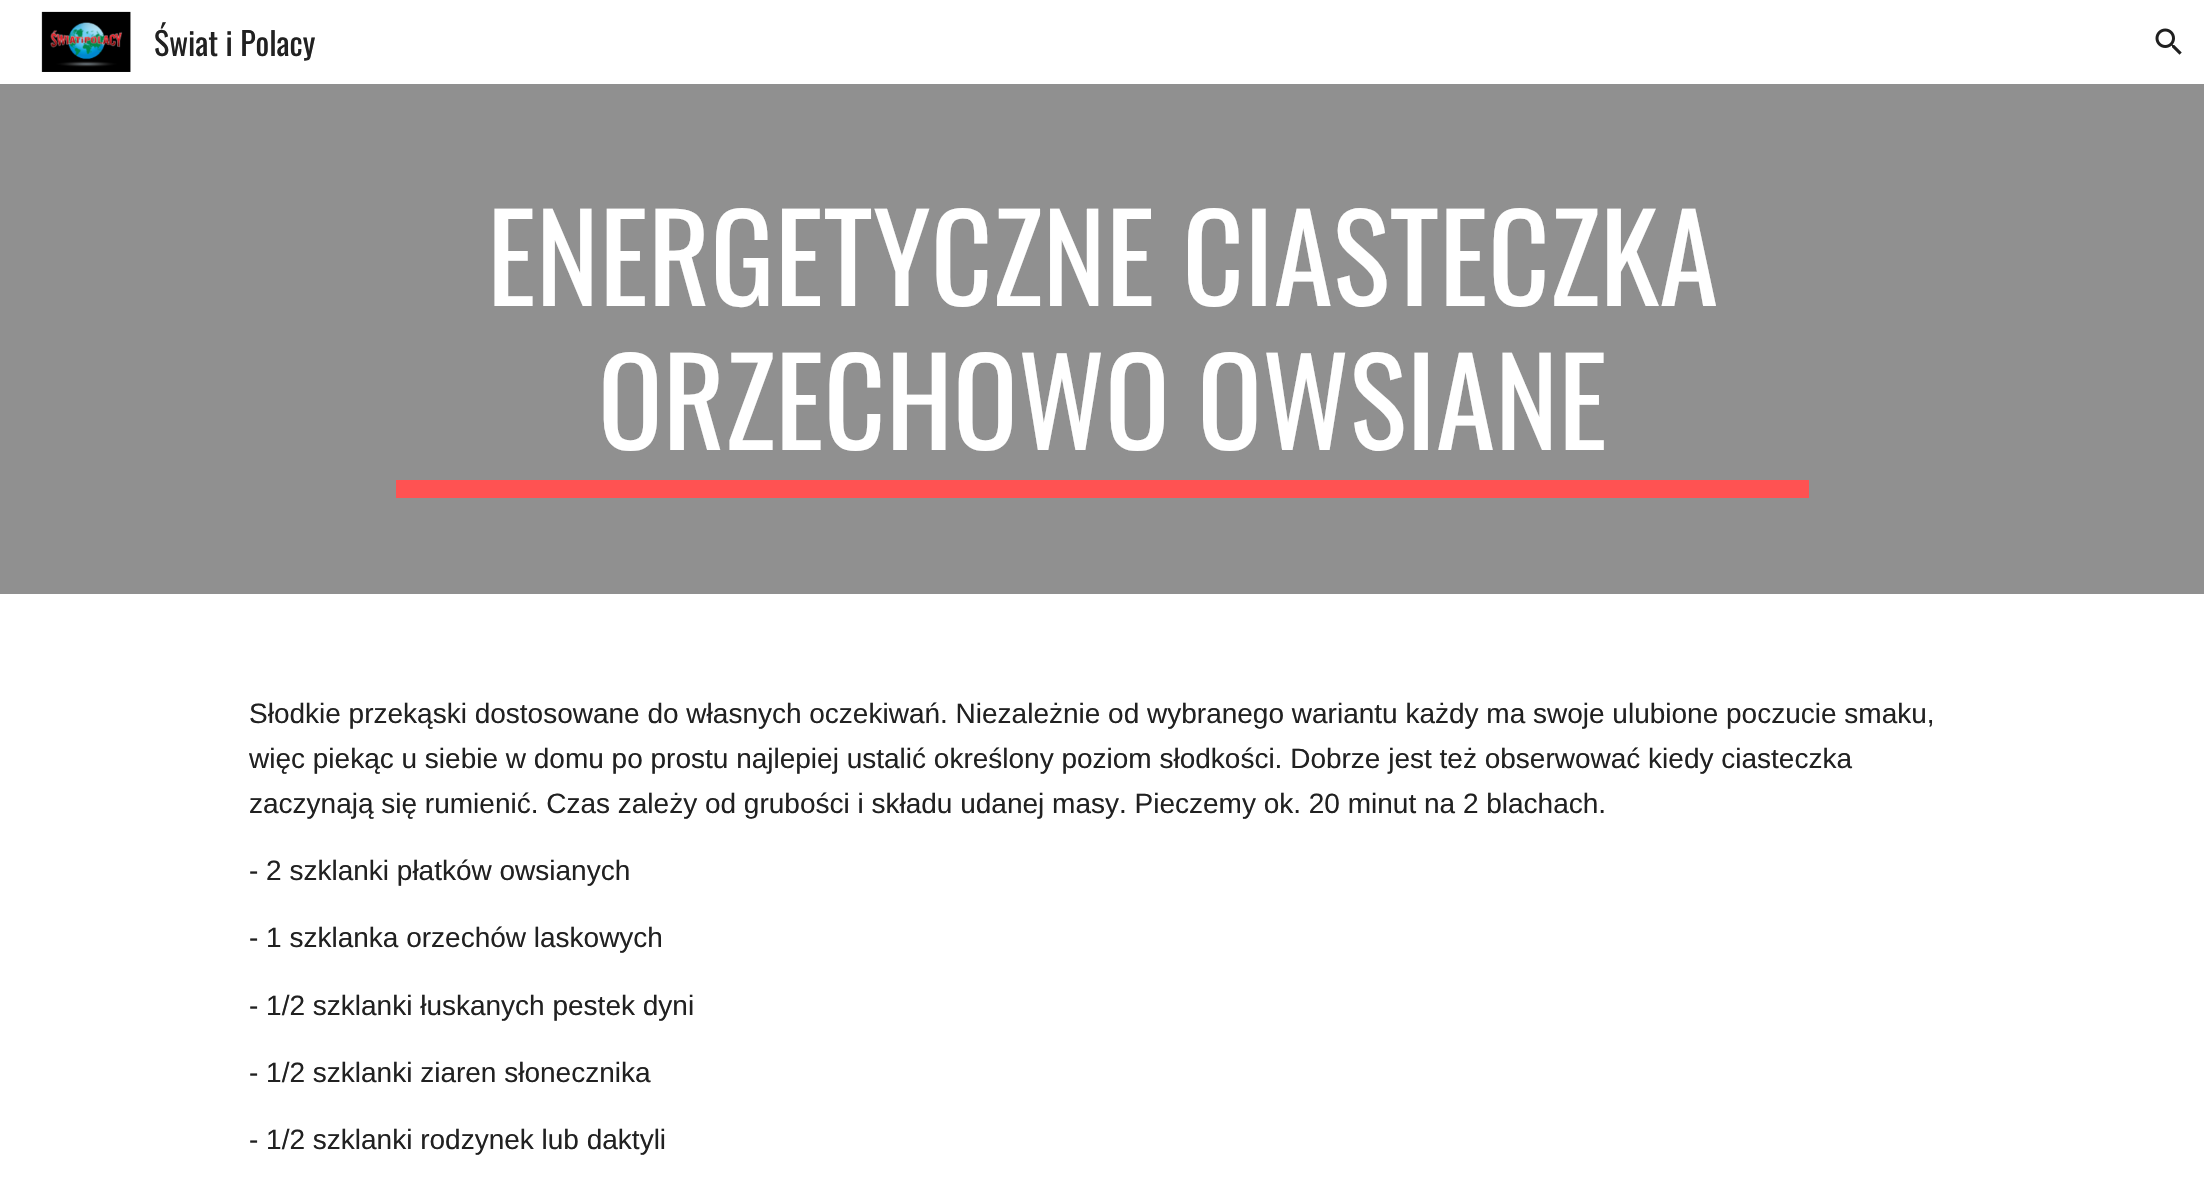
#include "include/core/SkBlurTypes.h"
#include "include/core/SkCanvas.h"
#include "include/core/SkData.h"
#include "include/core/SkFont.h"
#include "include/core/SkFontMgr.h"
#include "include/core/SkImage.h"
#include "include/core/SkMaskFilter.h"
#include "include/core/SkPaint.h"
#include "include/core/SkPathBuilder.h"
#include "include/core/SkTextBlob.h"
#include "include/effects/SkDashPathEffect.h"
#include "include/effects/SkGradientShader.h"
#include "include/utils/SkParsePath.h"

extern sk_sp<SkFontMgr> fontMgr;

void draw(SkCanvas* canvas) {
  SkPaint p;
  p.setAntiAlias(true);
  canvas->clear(SK_ColorWHITE);
  canvas->drawImageRect(SkImages::DeferredFromEncodedData(SkData::MakeFromFileName("images/1.png")), SkRect::MakeLTRB(41, 11, 131, 72), SkSamplingOptions());
  canvas->drawImageRect(SkImages::DeferredFromEncodedData(SkData::MakeFromFileName("images/2.png")), SkRect::MakeLTRB(2155, 28, 2182, 55), SkSamplingOptions());
  p.setColor(SkColorSetRGB(144, 144, 144));
  canvas->drawRect(SkRect::MakeLTRB(0, 84, 2204, 594), p);
  p.setColor(SkColorSetRGB(255, 82, 82));
  canvas->drawRect(SkRect::MakeLTRB(396, 480, 1809, 498), p);
  SkFont font1(fontMgr->matchFamilyStyle("Oswald", SkFontStyle::Normal()), 32);
  font1.setSubpixel(true);
  p.setColor(SkColorSetRGB(33, 33, 33));
  canvas->drawString("Świat i Polacy", 154, 56, font1, p);
  SkFont font2(fontMgr->matchFamilyStyle("Oswald", SkFontStyle::Normal()), 120);
  font2.setSubpixel(true);
  p.setColor(SK_ColorWHITE);
  canvas->drawString("ENERGETYCZNE CIASTECZKA", 487, 306, font2, p);
  canvas->drawString("ORZECHOWO OWSIANE", 598, 450, font2, p);
  SkFont font3(fontMgr->matchFamilyStyle("Liberation Sans", SkFontStyle::Normal()), 28);
  font3.setSubpixel(true);
  p.setColor(SkColorSetRGB(33, 33, 33));
  canvas->drawString("Słodkie przekąski dostosowane do własnych oczekiwań. Niezależnie od wybranego wariantu każdy ma swoje ulubione poczucie smaku,", 249, 723, font3, p);
  canvas->drawString("więc piekąc u siebie w domu po prostu najlepiej ustalić określony poziom słodkości. Dobrze jest też obserwować kiedy ciasteczka", 249, 768, font3, p);
  canvas->drawString("zaczynają się rumienić. Czas zależy od grubości i składu udanej masy. Pieczemy ok. 20 minut na 2 blachach.", 249, 813, font3, p);
  canvas->drawString("- 2 szklanki płatków owsianych", 249, 880, font3, p);
  canvas->drawString("- 1 szklanka orzechów laskowych", 249, 947, font3, p);
  canvas->drawString("- 1/2 szklanki łuskanych pestek dyni", 249, 1015, font3, p);
  canvas->drawString("- 1/2 szklanki ziaren słonecznika", 249, 1082, font3, p);
  canvas->drawString("- 1/2 szklanki rodzynek lub daktyli", 249, 1149, font3, p);
}
